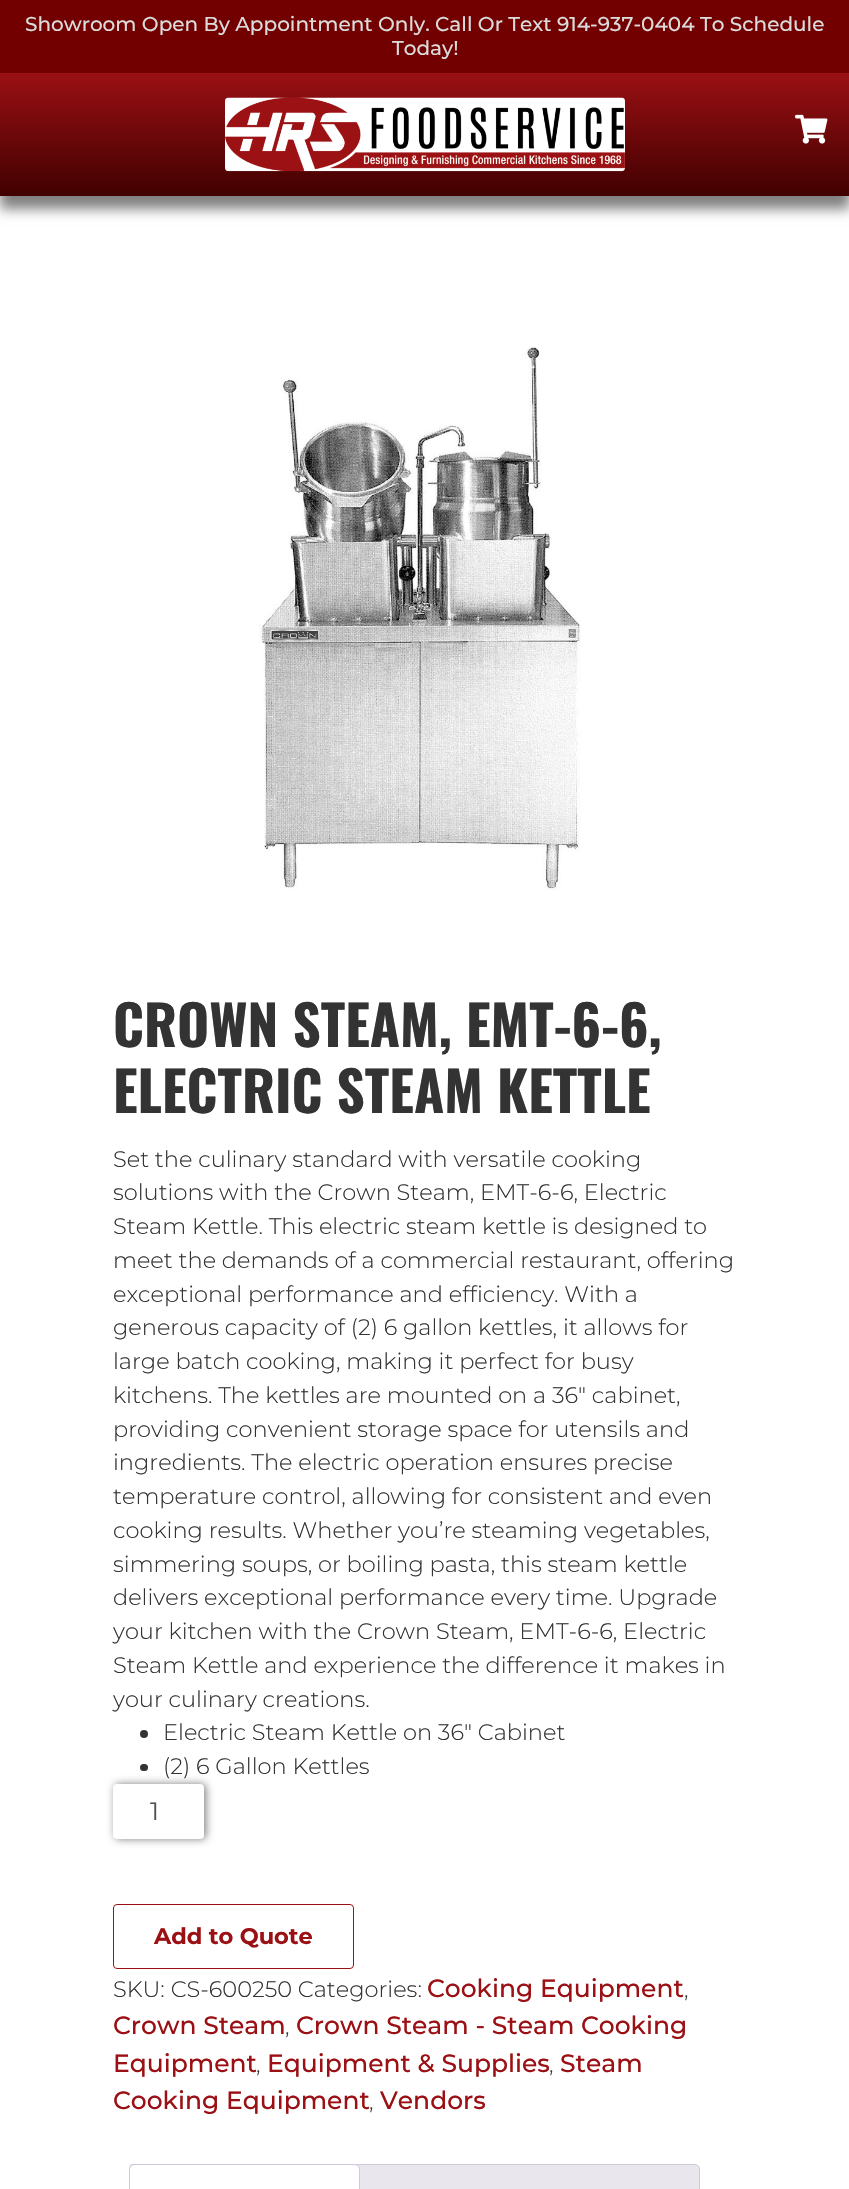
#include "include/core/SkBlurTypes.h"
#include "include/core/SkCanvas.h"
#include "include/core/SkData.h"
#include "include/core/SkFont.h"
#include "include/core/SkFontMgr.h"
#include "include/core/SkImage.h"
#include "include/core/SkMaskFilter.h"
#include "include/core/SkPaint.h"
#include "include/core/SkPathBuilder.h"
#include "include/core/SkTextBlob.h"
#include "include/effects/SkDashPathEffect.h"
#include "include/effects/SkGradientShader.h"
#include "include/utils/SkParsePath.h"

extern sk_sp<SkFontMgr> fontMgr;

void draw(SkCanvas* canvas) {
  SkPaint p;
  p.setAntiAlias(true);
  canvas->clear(SK_ColorWHITE);
  p.setColor(SkColorSetRGB(114, 0, 0));
  canvas->drawRect(SkRect::MakeLTRB(0, 0, 849, 73), p);
  p.setColor(SkColorSetARGB(128, 0, 0, 0));
  p.setMaskFilter(SkMaskFilter::MakeBlur(kNormal_SkBlurStyle, 6));
  canvas->drawRect(SkRect::MakeLTRB(0, 85, 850, 209), p);
  p.setMaskFilter(nullptr);
  {
    const SkColor colors[] = {SkColorSetRGB(155, 16, 20), SkColorSetRGB(65, 0, 0)};
    const float stops[] = {0, 1};
    const SkPoint ends[] = {{425, 72}, {425, 196}};
    p.setShader(SkGradientShader::MakeLinear(ends, colors, stops, 2, SkTileMode::kClamp));
    p.setAlpha(255);
  }
  canvas->drawRect(SkRect::MakeLTRB(0, 73, 849, 196), p);
  canvas->drawImageRect(SkImages::DeferredFromEncodedData(SkData::MakeFromFileName("images/1.png")), SkRect::MakeLTRB(225, 97, 625, 172), SkSamplingOptions());
  canvas->drawImageRect(SkImages::DeferredFromEncodedData(SkData::MakeFromFileName("images/2.png")), SkRect::MakeLTRB(795, 114, 828, 144), SkSamplingOptions());
  canvas->drawImageRect(SkImages::DeferredFromEncodedData(SkData::MakeFromFileName("images/3.png")), SkRect::MakeLTRB(259, 346, 581, 891), SkSamplingOptions());
  p.setShader(nullptr);
  p.setColor(SkColorSetRGB(51, 51, 51));
  canvas->drawCircle(144, 1734, 4, p);
  canvas->drawRoundRect(SkRect::MakeLTRB(140, 1764, 148, 1771), 3.5f, 3.5f, p);
  p.setColor(SkColorSetARGB(128, 0, 0, 0));
  p.setMaskFilter(SkMaskFilter::MakeBlur(kNormal_SkBlurStyle, 4));
  canvas->drawRoundRect(SkRect::MakeLTRB(115, 1784, 206, 1839), 4, 4, p);
  p.setMaskFilter(nullptr);
  p.setColor(SK_ColorWHITE);
  canvas->drawRoundRect(SkRect::MakeLTRB(113, 1784, 204, 1839), 4, 4, p);
  p.setStyle(SkPaint::kStroke_Style);
  p.setStrokeWidth(1);
  p.setColor(SkColorSetRGB(155, 16, 20));
  canvas->drawRoundRect(SkRect::MakeLTRB(113.5f, 1904.5f, 353.5f, 1968.5f), 3.5f, 3.5f, p);
  p.setStyle(SkPaint::kFill_Style);
  p.setColor(SkColorSetRGB(233, 230, 237));
  canvas->drawPath(SkPathBuilder().moveTo(359, 2164.5f).lineTo(695, 2164.5f).cubicTo(697.5f, 2164.5f, 699.5f, 2166.5f, 699.5f, 2169).lineTo(699.5f, 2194.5f).lineTo(354.5f, 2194.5f).lineTo(354.5f, 2169).cubicTo(354.5f, 2166.5f, 356.5f, 2164.5f, 359, 2164.5f).close().detach(), p);
  p.setStyle(SkPaint::kStroke_Style);
  p.setColor(SkColorSetRGB(207, 200, 216));
  canvas->drawPath(SkPathBuilder().moveTo(359, 2164.5f).lineTo(695, 2164.5f).cubicTo(697.5f, 2164.5f, 699.5f, 2166.5f, 699.5f, 2169).lineTo(699.5f, 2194.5f).lineTo(354.5f, 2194.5f).lineTo(354.5f, 2169).cubicTo(354.5f, 2166.5f, 356.5f, 2164.5f, 359, 2164.5f).close().detach(), p);
  p.setStyle(SkPaint::kFill_Style);
  p.setColor(SK_ColorWHITE);
  canvas->drawPath(SkPathBuilder().moveTo(134, 2164).lineTo(355, 2164).cubicTo(358, 2164, 360, 2166, 360, 2169).lineTo(360, 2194).lineTo(129, 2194).lineTo(129, 2169).cubicTo(129, 2166, 131, 2164, 134, 2164).close().detach(), p);
  p.setColor(SkColorSetRGB(207, 200, 216));
  canvas->drawPath(SkPathBuilder().moveTo(134, 2164).cubicTo(132, 2164, 131, 2164, 130, 2165).lineTo(131, 2166).lineTo(134, 2165).lineTo(355, 2165).lineTo(358, 2166).lineTo(358, 2165).cubicTo(358, 2164, 356, 2164, 355, 2164).close().detach(), p);
  canvas->drawPath(SkPathBuilder().moveTo(358, 2165).cubicTo(359, 2166, 360, 2167, 360, 2169).lineTo(360, 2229).lineTo(359, 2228).lineTo(359, 2169).lineTo(358, 2166).close().detach(), p);
  canvas->drawPath(SkPathBuilder().moveTo(130, 2165).cubicTo(130, 2166, 129, 2168, 129, 2169).lineTo(129, 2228).lineTo(130, 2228).lineTo(130, 2169).lineTo(131, 2166).close().detach(), p);
  SkFont font1(fontMgr->matchFamilyStyle("Montserrat", SkFontStyle(500, SkFontStyle::kNormal_Width, SkFontStyle::kUpright_Slant)), 20);
  font1.setSubpixel(true);
  p.setColor(SkColorSetRGB(219, 219, 219));
  canvas->drawString("Showroom Open By Appointment Only. Call Or Text 914-937-0404 To Schedule", 25, 31, font1, p);
  canvas->drawString("Today!", 392, 55, font1, p);
  SkFont font2(fontMgr->matchFamilyStyle("Oswald", SkFontStyle::Bold()), 55);
  font2.setSubpixel(true);
  p.setColor(SkColorSetRGB(51, 51, 51));
  canvas->drawString("CROWN STEAM, EMT-6-6,", 113, 1047, font2, p);
  canvas->drawString("ELECTRIC STEAM KETTLE", 113, 1113, font2, p);
  SkFont font3(fontMgr->matchFamilyStyle("Montserrat", SkFontStyle(300, SkFontStyle::kNormal_Width, SkFontStyle::kUpright_Slant)), 22.5f);
  font3.setSubpixel(true);
  canvas->drawString("Set the culinary standard with versatile cooking", 113, 1167, font3, p);
  canvas->drawString("solutions with the Crown Steam, EMT-6-6, Electric", 113, 1200, font3, p);
  canvas->drawString("Steam Kettle. This electric steam kettle is designed to", 113, 1234, font3, p);
  canvas->drawString("meet the demands of a commercial restaurant, offering", 113, 1268, font3, p);
  canvas->drawString("exceptional performance and efficiency. With a", 113, 1302, font3, p);
  canvas->drawString("generous capacity of (2) 6 gallon kettles, it allows for", 113, 1335, font3, p);
  canvas->drawString("large batch cooking, making it perfect for busy", 113, 1369, font3, p);
  canvas->drawString("kitchens. The kettles are mounted on a 36″ cabinet,", 113, 1403, font3, p);
  canvas->drawString("providing convenient storage space for utensils and", 113, 1437, font3, p);
  canvas->drawString("ingredients. The electric operation ensures precise", 113, 1470, font3, p);
  canvas->drawString("temperature control, allowing for consistent and even", 113, 1504, font3, p);
  canvas->drawString("cooking results. Whether you’re steaming vegetables,", 113, 1538, font3, p);
  canvas->drawString("simmering soups, or boiling pasta, this steam kettle", 113, 1572, font3, p);
  canvas->drawString("delivers exceptional performance every time. Upgrade", 113, 1605, font3, p);
  canvas->drawString("your kitchen with the Crown Steam, EMT-6-6, Electric", 113, 1639, font3, p);
  canvas->drawString("Steam Kettle and experience the difference it makes in", 113, 1673, font3, p);
  canvas->drawString("your culinary creations.", 113, 1707, font3, p);
  canvas->drawString("Electric Steam Kettle on 36″ Cabinet", 163, 1740, font3, p);
  canvas->drawString("(2) 6 Gallon Kettles", 163, 1774, font3, p);
  SkFont font4(fontMgr->matchFamilyStyle("Montserrat", SkFontStyle::Normal()), 25);
  font4.setSubpixel(true);
  p.setColor(SkColorSetRGB(85, 81, 81));
  canvas->drawString("1", 150, 1820, font4, p);
  SkFont font5(fontMgr->matchFamilyStyle("Montserrat", SkFontStyle::Bold()), 22.5f);
  font5.setSubpixel(true);
  p.setColor(SkColorSetRGB(155, 16, 20));
  canvas->drawString("Add to Quote", 154, 1944, font5, p);
  p.setColor(SkColorSetRGB(51, 51, 51));
  canvas->drawString("SKU: CS-600250 Categories:", 113, 1997, font3, p);
  SkFont font6(fontMgr->matchFamilyStyle("Montserrat", SkFontStyle(500, SkFontStyle::kNormal_Width, SkFontStyle::kUpright_Slant)), 25);
  font6.setSubpixel(true);
  p.setColor(SkColorSetRGB(155, 16, 20));
  canvas->drawString("Cooking Equipment", 427, 1997, font6, p);
  p.setColor(SkColorSetRGB(51, 51, 51));
  canvas->drawString(",", 684, 1997, font3, p);
  p.setColor(SkColorSetRGB(155, 16, 20));
  canvas->drawString("Crown Steam", 113, 2034, font6, p);
  p.setColor(SkColorSetRGB(51, 51, 51));
  canvas->drawString(",", 285, 2034, font3, p);
  p.setColor(SkColorSetRGB(155, 16, 20));
  canvas->drawString("Crown Steam - Steam Cooking", 296, 2034, font6, p);
  canvas->drawString("Equipment", 113, 2072, font6, p);
  p.setColor(SkColorSetRGB(51, 51, 51));
  canvas->drawString(",", 256, 2072, font3, p);
  p.setColor(SkColorSetRGB(155, 16, 20));
  canvas->drawString("Equipment & Supplies", 267, 2072, font6, p);
  p.setColor(SkColorSetRGB(51, 51, 51));
  canvas->drawString(",", 549, 2072, font3, p);
  p.setColor(SkColorSetRGB(155, 16, 20));
  canvas->drawString("Steam", 560, 2072, font6, p);
  canvas->drawString("Cooking Equipment", 113, 2109, font6, p);
  p.setColor(SkColorSetRGB(51, 51, 51));
  canvas->drawString(",", 369, 2109, font3, p);
  p.setColor(SkColorSetRGB(155, 16, 20));
  canvas->drawString("Vendors", 380, 2109, font6, p);
}
